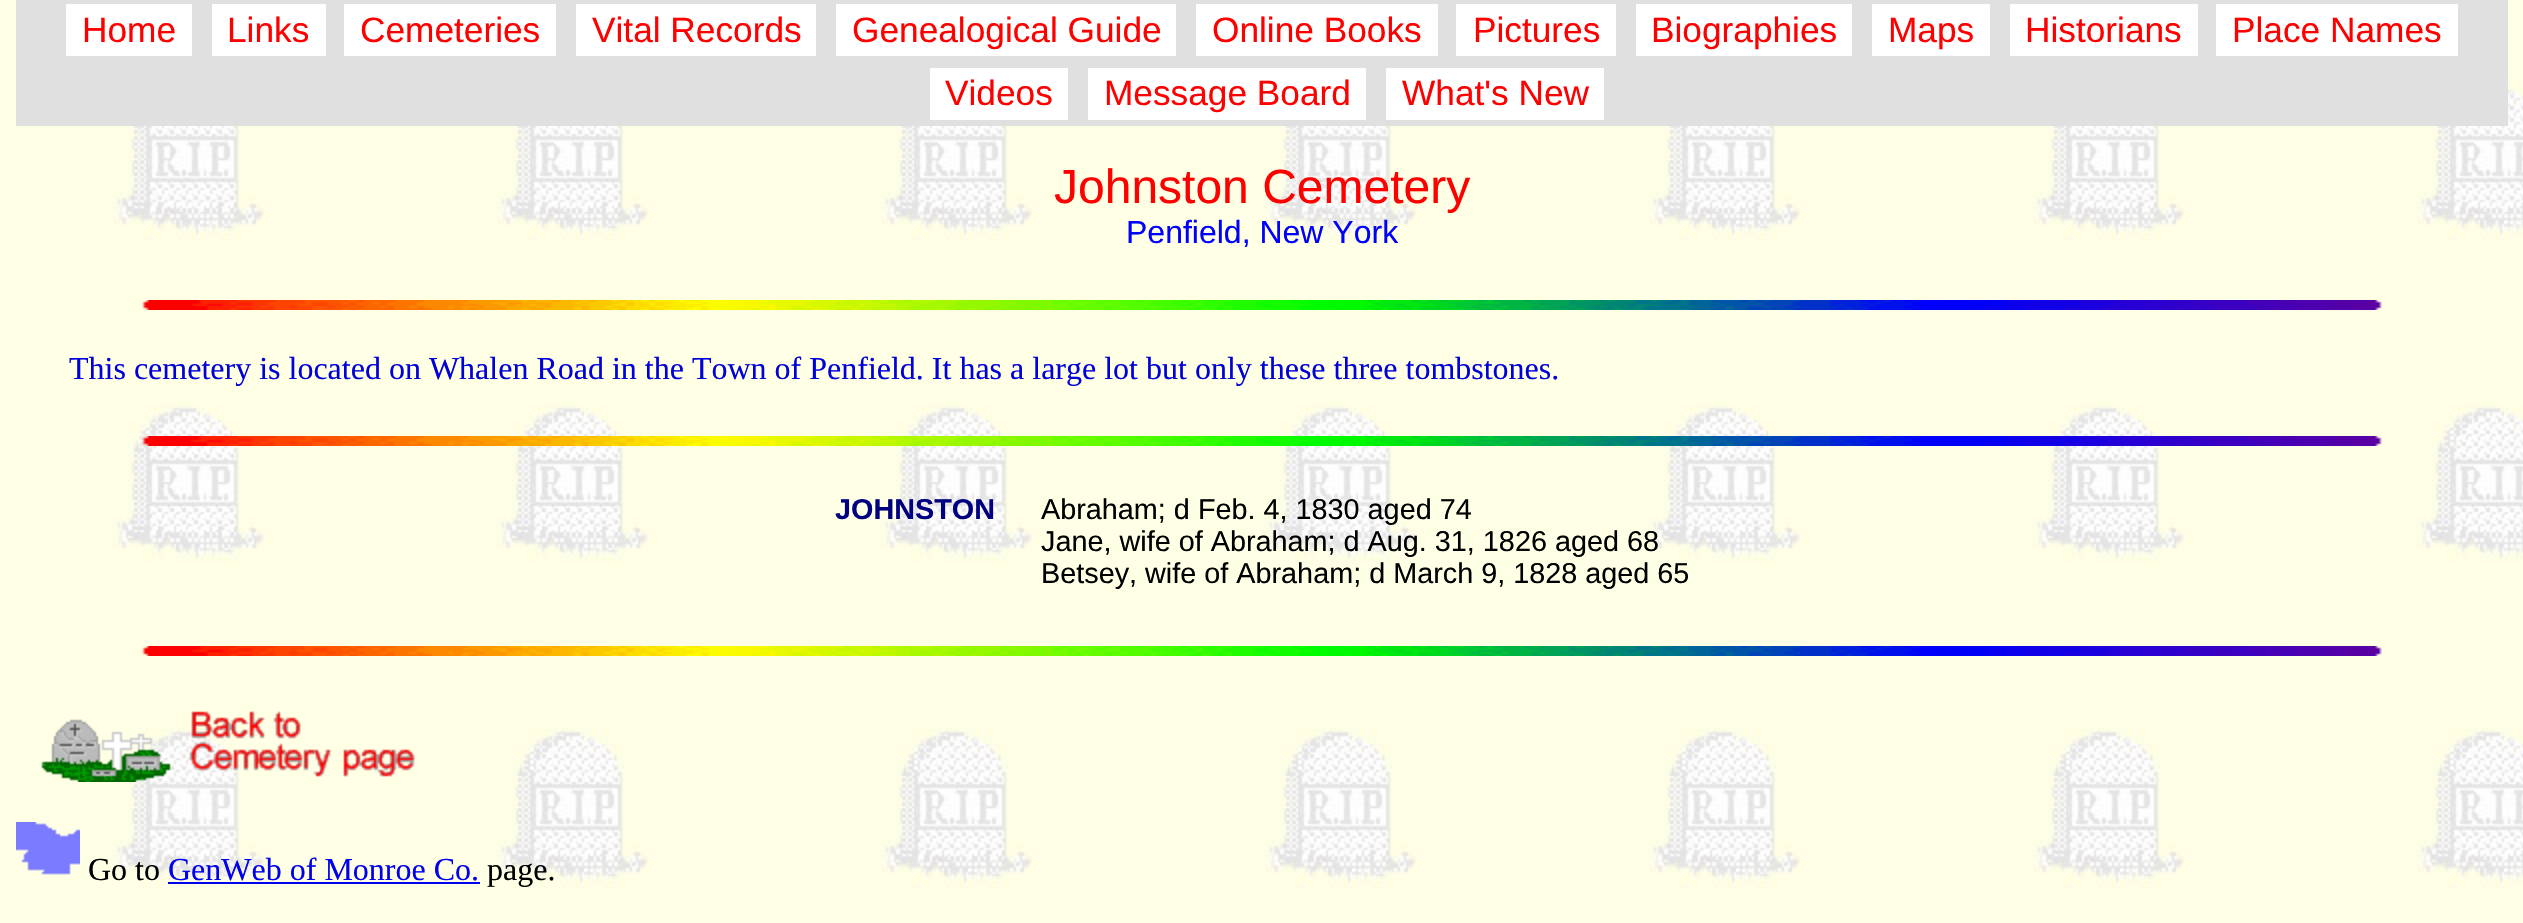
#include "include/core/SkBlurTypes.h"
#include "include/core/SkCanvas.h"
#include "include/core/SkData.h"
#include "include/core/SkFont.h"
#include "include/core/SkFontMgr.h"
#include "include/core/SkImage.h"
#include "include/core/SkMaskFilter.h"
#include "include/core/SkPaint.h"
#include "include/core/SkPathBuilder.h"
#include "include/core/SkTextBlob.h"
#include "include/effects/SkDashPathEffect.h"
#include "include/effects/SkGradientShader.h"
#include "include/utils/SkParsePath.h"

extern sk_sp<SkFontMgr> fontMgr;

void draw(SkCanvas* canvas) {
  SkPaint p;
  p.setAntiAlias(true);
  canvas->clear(SK_ColorWHITE);
  canvas->drawImageRect(SkImages::DeferredFromEncodedData(SkData::MakeFromFileName("images/1.png")), SkRect::MakeLTRB(0, 0, 2523, 923), SkSamplingOptions());
  p.setColor(SkColorSetRGB(224, 224, 224));
  canvas->drawRect(SkRect::MakeLTRB(16, 0, 2508, 126), p);
  p.setColor(SK_ColorWHITE);
  canvas->drawRect(SkRect::MakeLTRB(66, 4, 192, 56), p);
  canvas->drawRect(SkRect::MakeLTRB(212, 4, 326, 56), p);
  canvas->drawRect(SkRect::MakeLTRB(344, 4, 556, 56), p);
  canvas->drawRect(SkRect::MakeLTRB(576, 4, 816, 56), p);
  canvas->drawRect(SkRect::MakeLTRB(836, 4, 1176, 56), p);
  canvas->drawRect(SkRect::MakeLTRB(1196, 4, 1438, 56), p);
  canvas->drawRect(SkRect::MakeLTRB(1456, 4, 1616, 56), p);
  canvas->drawRect(SkRect::MakeLTRB(1636, 4, 1852, 56), p);
  canvas->drawRect(SkRect::MakeLTRB(1872, 4, 1990, 56), p);
  canvas->drawRect(SkRect::MakeLTRB(2010, 4, 2198, 56), p);
  canvas->drawRect(SkRect::MakeLTRB(2216, 4, 2458, 56), p);
  canvas->drawRect(SkRect::MakeLTRB(930, 68, 1068, 120), p);
  canvas->drawRect(SkRect::MakeLTRB(1088, 68, 1366, 120), p);
  canvas->drawRect(SkRect::MakeLTRB(1386, 68, 1604, 120), p);
  canvas->drawImageRect(SkImages::DeferredFromEncodedData(SkData::MakeFromFileName("images/2.png")), SkRect::MakeLTRB(142, 300, 2382, 310), SkSamplingOptions());
  canvas->drawImageRect(SkImages::DeferredFromEncodedData(SkData::MakeFromFileName("images/3.png")), SkRect::MakeLTRB(142, 436, 2382, 446), SkSamplingOptions());
  canvas->drawImageRect(SkImages::DeferredFromEncodedData(SkData::MakeFromFileName("images/2.png")), SkRect::MakeLTRB(142, 646, 2382, 656), SkSamplingOptions());
  canvas->drawImageRect(SkImages::DeferredFromEncodedData(SkData::MakeFromFileName("images/4.png")), SkRect::MakeLTRB(41, 711, 415, 782), SkSamplingOptions());
  canvas->drawImageRect(SkImages::DeferredFromEncodedData(SkData::MakeFromFileName("images/5.png")), SkRect::MakeLTRB(16, 822, 80, 875), SkSamplingOptions());
  p.setColor(SkColorSetRGB(0, 0, 238));
  canvas->drawRect(SkRect::MakeLTRB(168, 882, 480, 884), p);
  SkFont font1(fontMgr->matchFamilyStyle("Liberation Sans", SkFontStyle::Normal()), 35.25f);
  font1.setSubpixel(true);
  p.setColor(SkColorSetRGB(255, 0, 0));
  canvas->drawString("Home", 82, 42, font1, p);
  canvas->drawString("Links", 227, 42, font1, p);
  canvas->drawString("Cemeteries", 360, 42, font1, p);
  canvas->drawString("Vital Records", 592, 42, font1, p);
  canvas->drawString("Genealogical Guide", 852, 42, font1, p);
  canvas->drawString("Online Books", 1212, 42, font1, p);
  canvas->drawString("Pictures", 1473, 42, font1, p);
  canvas->drawString("Biographies", 1651, 42, font1, p);
  canvas->drawString("Maps", 1888, 42, font1, p);
  canvas->drawString("Historians", 2025, 42, font1, p);
  canvas->drawString("Place Names", 2232, 42, font1, p);
  canvas->drawString("Videos", 945, 105, font1, p);
  canvas->drawString("Message Board", 1104, 105, font1, p);
  canvas->drawString("What's New", 1402, 105, font1, p);
  SkFont font2(fontMgr->matchFamilyStyle("Liberation Sans", SkFontStyle::Normal()), 48);
  font2.setSubpixel(true);
  canvas->drawString("Johnston Cemetery", 1054, 203, font2, p);
  SkFont font3(fontMgr->matchFamilyStyle("Liberation Sans", SkFontStyle::Normal()), 32);
  font3.setSubpixel(true);
  p.setColor(SkColorSetRGB(0, 0, 255));
  canvas->drawString("Penfield, New York", 1126, 243, font3, p);
  SkFont font4(fontMgr->matchFamilyStyle("Liberation Serif", SkFontStyle::Normal()), 32);
  font4.setSubpixel(true);
  p.setColor(SkColorSetRGB(0, 0, 219));
  canvas->drawString("This cemetery is located on Whalen Road in the Town of Penfield. It has a large lot but only these three tombstones.", 69, 379, font4, p);
  SkFont font5(fontMgr->matchFamilyStyle("Liberation Sans", SkFontStyle::Bold()), 28.8f);
  font5.setSubpixel(true);
  p.setColor(SkColorSetRGB(0, 0, 128));
  canvas->drawString("JOHNSTON", 835, 519, font5, p);
  SkFont font6(fontMgr->matchFamilyStyle("Liberation Sans", SkFontStyle::Normal()), 28.8f);
  font6.setSubpixel(true);
  p.setColor(SK_ColorBLACK);
  canvas->drawString("Abraham; d Feb. 4, 1830 aged 74", 1041, 519, font6, p);
  canvas->drawString("Jane, wife of Abraham; d Aug. 31, 1826 aged 68", 1041, 551, font6, p);
  canvas->drawString("Betsey, wife of Abraham; d March 9, 1828 aged 65", 1041, 583, font6, p);
  canvas->drawString("Go to", 88, 880, font4, p);
  p.setColor(SkColorSetRGB(0, 0, 238));
  canvas->drawString("GenWeb of Monroe Co.", 168, 880, font4, p);
  p.setColor(SK_ColorBLACK);
  canvas->drawString("page.", 487, 880, font4, p);
}
